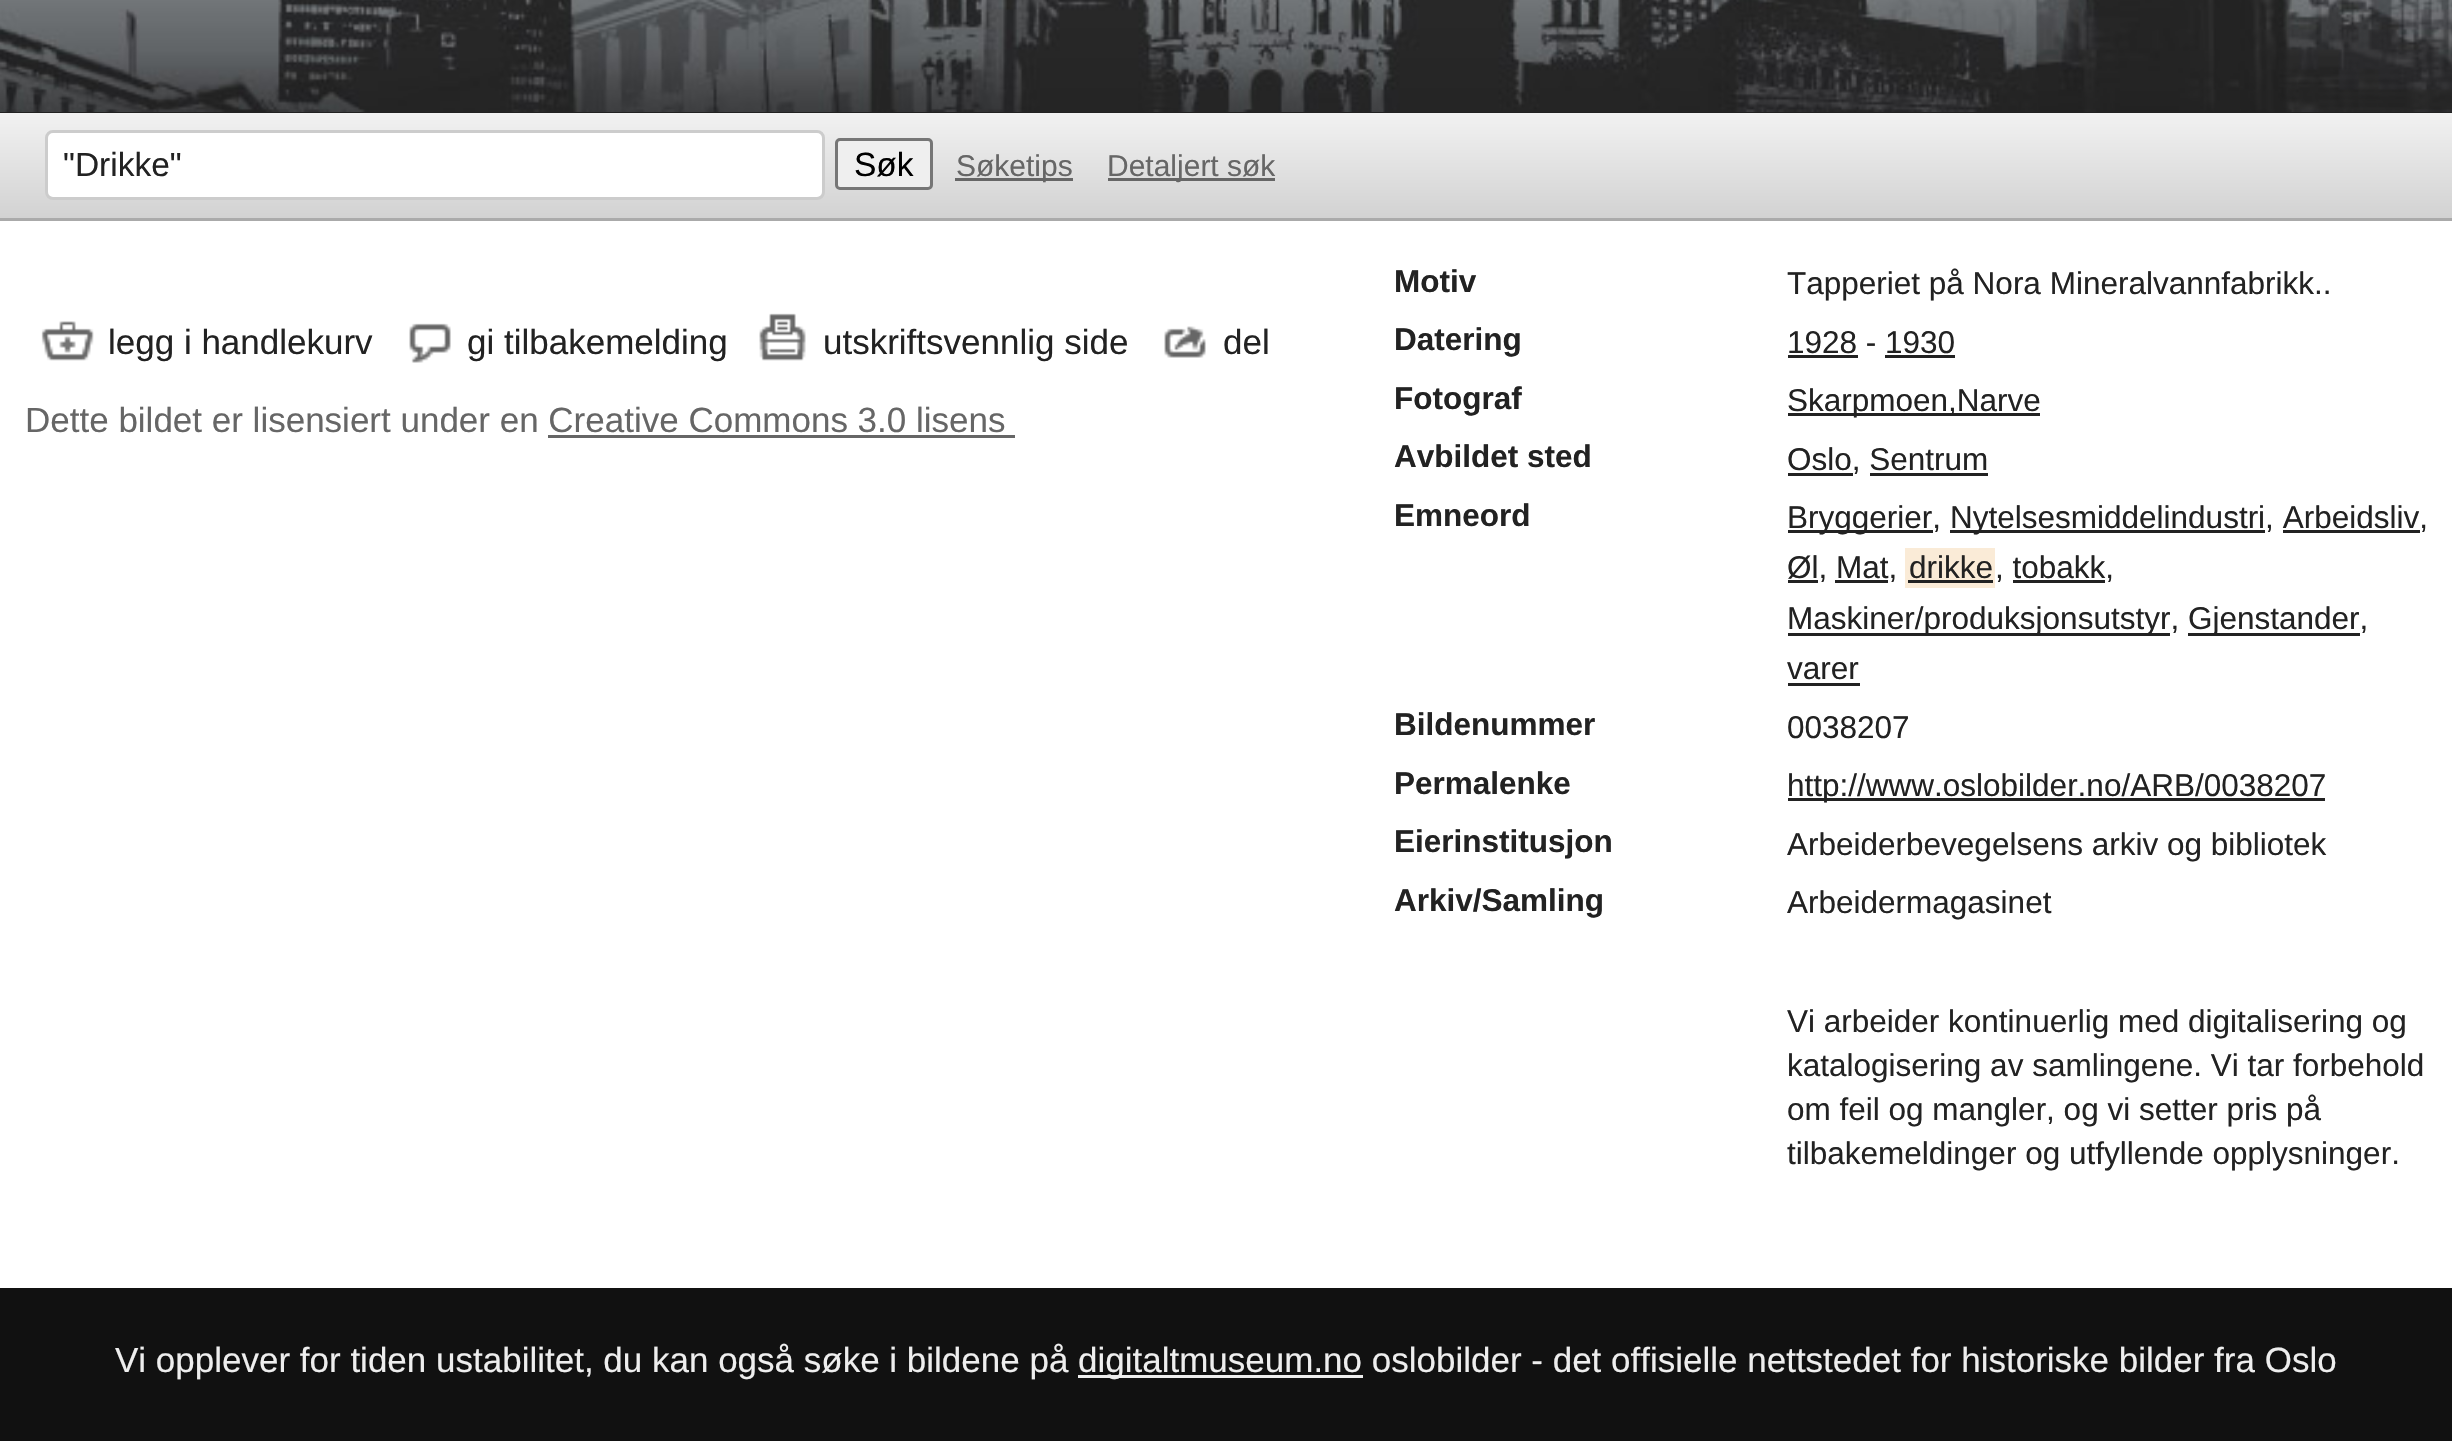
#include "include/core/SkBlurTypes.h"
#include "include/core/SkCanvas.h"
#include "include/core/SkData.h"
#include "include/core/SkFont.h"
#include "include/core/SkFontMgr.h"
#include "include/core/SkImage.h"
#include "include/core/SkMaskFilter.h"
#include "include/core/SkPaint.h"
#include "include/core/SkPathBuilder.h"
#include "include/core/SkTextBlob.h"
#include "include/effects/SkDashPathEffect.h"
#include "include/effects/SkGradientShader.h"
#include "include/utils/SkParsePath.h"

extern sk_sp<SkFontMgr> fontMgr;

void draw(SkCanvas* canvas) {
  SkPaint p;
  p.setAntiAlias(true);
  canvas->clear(SK_ColorWHITE);
  p.setColor(SkColorSetRGB(34, 34, 34));
  canvas->drawRect(SkRect::MakeLTRB(0, 112, 2452, 113), p);
  canvas->drawImageRect(SkImages::DeferredFromEncodedData(SkData::MakeFromFileName("images/1.png")), SkRect::MakeLTRB(0, 0, 2452, 112), SkSamplingOptions());
  {
    const SkColor colors[] = {SkColorSetRGB(242, 242, 242), SkColorSetRGB(210, 210, 210)};
    const float stops[] = {0, 1};
    const SkPoint ends[] = {{1226, 112}, {1226, 218}};
    p.setShader(SkGradientShader::MakeLinear(ends, colors, stops, 2, SkTileMode::kClamp));
    p.setAlpha(255);
  }
  canvas->drawRect(SkRect::MakeLTRB(0, 113, 2452, 218), p);
  p.setShader(nullptr);
  p.setColor(SkColorSetRGB(170, 170, 170));
  canvas->drawRect(SkRect::MakeLTRB(0, 218, 2452, 221), p);
  p.setColor(SK_ColorWHITE);
  canvas->drawRoundRect(SkRect::MakeLTRB(46.5f, 131.5f, 823.5f, 198.5f), 6.5f, 6.5f, p);
  p.setStyle(SkPaint::kStroke_Style);
  p.setStrokeWidth(3);
  p.setColor(SkColorSetRGB(204, 204, 204));
  canvas->drawRoundRect(SkRect::MakeLTRB(46.5f, 131.5f, 823.5f, 198.5f), 6.5f, 6.5f, p);
  p.setStyle(SkPaint::kFill_Style);
  p.setColor(SkColorSetRGB(239, 239, 239));
  canvas->drawRoundRect(SkRect::MakeLTRB(836.5f, 139.5f, 931.5f, 188.5f), 3.5f, 3.5f, p);
  p.setStyle(SkPaint::kStroke_Style);
  p.setColor(SkColorSetRGB(118, 118, 118));
  canvas->drawRoundRect(SkRect::MakeLTRB(836.5f, 139.5f, 931.5f, 188.5f), 3.5f, 3.5f, p);
  p.setStyle(SkPaint::kFill_Style);
  p.setColor(SkColorSetRGB(102, 102, 102));
  canvas->drawRect(SkRect::MakeLTRB(955, 178, 1073, 181), p);
  canvas->drawRect(SkRect::MakeLTRB(1108, 178, 1275, 181), p);
  canvas->drawImageRect(SkImages::DeferredFromEncodedData(SkData::MakeFromFileName("images/2.png")), SkRect::MakeLTRB(41, 321, 94, 361), SkSamplingOptions());
  canvas->drawImageRect(SkImages::DeferredFromEncodedData(SkData::MakeFromFileName("images/3.png")), SkRect::MakeLTRB(409, 323, 451, 363), SkSamplingOptions());
  canvas->drawImageRect(SkImages::DeferredFromEncodedData(SkData::MakeFromFileName("images/4.png")), SkRect::MakeLTRB(759, 313, 806, 361), SkSamplingOptions());
  canvas->drawImageRect(SkImages::DeferredFromEncodedData(SkData::MakeFromFileName("images/5.png")), SkRect::MakeLTRB(1164, 326, 1206, 358), SkSamplingOptions());
  canvas->drawRect(SkRect::MakeLTRB(548, 435, 1015, 438), p);
  p.setColor(SkColorSetRGB(34, 34, 34));
  canvas->drawRect(SkRect::MakeLTRB(1788, 355, 1858, 358), p);
  canvas->drawRect(SkRect::MakeLTRB(1885, 355, 1955, 358), p);
  canvas->drawRect(SkRect::MakeLTRB(1788, 413, 2040, 416), p);
  canvas->drawRect(SkRect::MakeLTRB(1788, 473, 1853, 476), p);
  canvas->drawRect(SkRect::MakeLTRB(1870, 473, 1988, 476), p);
  canvas->drawRect(SkRect::MakeLTRB(1788, 530, 1933, 533), p);
  canvas->drawRect(SkRect::MakeLTRB(1950, 530, 2265, 533), p);
  canvas->drawRect(SkRect::MakeLTRB(2283, 530, 2420, 533), p);
  canvas->drawRect(SkRect::MakeLTRB(1788, 580, 1818, 583), p);
  p.setColor(SkColorSetRGB(250, 235, 215));
  canvas->drawRect(SkRect::MakeLTRB(1905, 548, 1995, 588), p);
  p.setColor(SkColorSetRGB(34, 34, 34));
  canvas->drawRect(SkRect::MakeLTRB(1908, 580, 1993, 583), p);
  canvas->drawRect(SkRect::MakeLTRB(1835, 580, 1888, 583), p);
  canvas->drawRect(SkRect::MakeLTRB(2013, 580, 2105, 583), p);
  canvas->drawRect(SkRect::MakeLTRB(1788, 633, 2170, 636), p);
  canvas->drawRect(SkRect::MakeLTRB(2188, 633, 2360, 636), p);
  canvas->drawRect(SkRect::MakeLTRB(1788, 683, 1860, 686), p);
  canvas->drawRect(SkRect::MakeLTRB(1788, 798, 2325, 801), p);
  p.setColor(SkColorSetRGB(17, 17, 17));
  canvas->drawRect(SkRect::MakeLTRB(0, 1288, 2452, 1441), p);
  p.setColor(SkColorSetRGB(238, 238, 238));
  canvas->drawRect(SkRect::MakeLTRB(1078, 1375, 1363, 1378), p);
  SkFont font1(fontMgr->matchFamilyStyle("Liberation Sans", SkFontStyle::Normal()), 33.5f);
  font1.setSubpixel(true);
  p.setColor(SkColorSetRGB(34, 34, 34));
  canvas->drawString("\"Drikke\"", 63, 176, font1, p);
  p.setColor(SK_ColorBLACK);
  canvas->drawString("Søk", 854, 176, font1, p);
  SkFont font2(fontMgr->matchFamilyStyle("Liberation Sans", SkFontStyle::Normal()), 30);
  font2.setSubpixel(true);
  p.setColor(SkColorSetRGB(102, 102, 102));
  canvas->drawString("Søketips", 956, 176, font2, p);
  canvas->drawString("Detaljert søk", 1107, 176, font2, p);
  SkFont font3(fontMgr->matchFamilyStyle("Liberation Sans", SkFontStyle::Normal()), 35);
  font3.setSubpixel(true);
  p.setColor(SkColorSetRGB(34, 34, 34));
  canvas->drawString("legg i handlekurv", 108, 354, font3, p);
  canvas->drawString("gi tilbakemelding", 467, 354, font3, p);
  canvas->drawString("utskriftsvennlig side", 823, 354, font3, p);
  canvas->drawString("del", 1223, 354, font3, p);
  p.setColor(SkColorSetRGB(102, 102, 102));
  canvas->drawString("Dette bildet er lisensiert under en Creative Commons 3.0 lisens", 25, 432, font3, p);
  SkFont font4(fontMgr->matchFamilyStyle("Liberation Sans", SkFontStyle::Bold()), 31.5f);
  font4.setSubpixel(true);
  p.setColor(SkColorSetRGB(34, 34, 34));
  canvas->drawString("Motiv", 1394, 292, font4, p);
  SkFont font5(fontMgr->matchFamilyStyle("Liberation Sans", SkFontStyle::Normal()), 31.5f);
  font5.setSubpixel(true);
  canvas->drawString("Tapperiet på Nora Mineralvannfabrikk..", 1787, 294, font5, p);
  canvas->drawString("Datering", 1394, 350, font4, p);
  canvas->drawString("1928 - 1930", 1787, 353, font5, p);
  canvas->drawString("Fotograf", 1394, 409, font4, p);
  canvas->drawString("Skarpmoen,Narve", 1787, 411, font5, p);
  canvas->drawString("Avbildet sted", 1394, 467, font4, p);
  canvas->drawString("Oslo, Sentrum", 1787, 470, font5, p);
  canvas->drawString("Emneord", 1394, 526, font4, p);
  canvas->drawString("Bryggerier,", 1787, 528, font5, p);
  canvas->drawString("Nytelsesmiddelindustri, Arbeidsliv,", 1950, 528, font5, p);
  canvas->drawString("Øl, Mat,", 1787, 578, font5, p);
  canvas->drawString("drikke", 1909, 578, font5, p);
  canvas->drawString(", tobakk,", 1995, 578, font5, p);
  canvas->drawString("Maskiner/produksjonsutstyr,", 1787, 629, font5, p);
  canvas->drawString("Gjenstander,", 2188, 629, font5, p);
  canvas->drawString("varer", 1787, 679, font5, p);
  canvas->drawString("Bildenummer", 1394, 735, font4, p);
  canvas->drawString("0038207", 1787, 738, font5, p);
  canvas->drawString("Permalenke", 1394, 794, font4, p);
  canvas->drawString("http://www.oslobilder.no/ARB/0038207", 1787, 796, font5, p);
  canvas->drawString("Eierinstitusjon", 1394, 852, font4, p);
  canvas->drawString("Arbeiderbevegelsens arkiv og bibliotek", 1787, 855, font5, p);
  canvas->drawString("Arkiv/Samling", 1394, 911, font4, p);
  canvas->drawString("Arbeidermagasinet", 1787, 913, font5, p);
  canvas->drawString("Vi arbeider kontinuerlig med digitalisering og", 1787, 1032, font5, p);
  canvas->drawString("katalogisering av samlingene. Vi tar forbehold", 1787, 1076, font5, p);
  canvas->drawString("om feil og mangler, og vi setter pris på", 1787, 1120, font5, p);
  canvas->drawString("tilbakemeldinger og utfyllende opplysninger.", 1787, 1164, font5, p);
  p.setColor(SkColorSetRGB(238, 238, 238));
  canvas->drawString("Vi opplever for tiden ustabilitet, du kan også søke i bildene på", 115, 1372, font3, p);
  canvas->drawString("digitaltmuseum.no oslobilder - det offisielle nettstedet for historiske bilder fra Oslo", 1078, 1372, font3, p);
}
